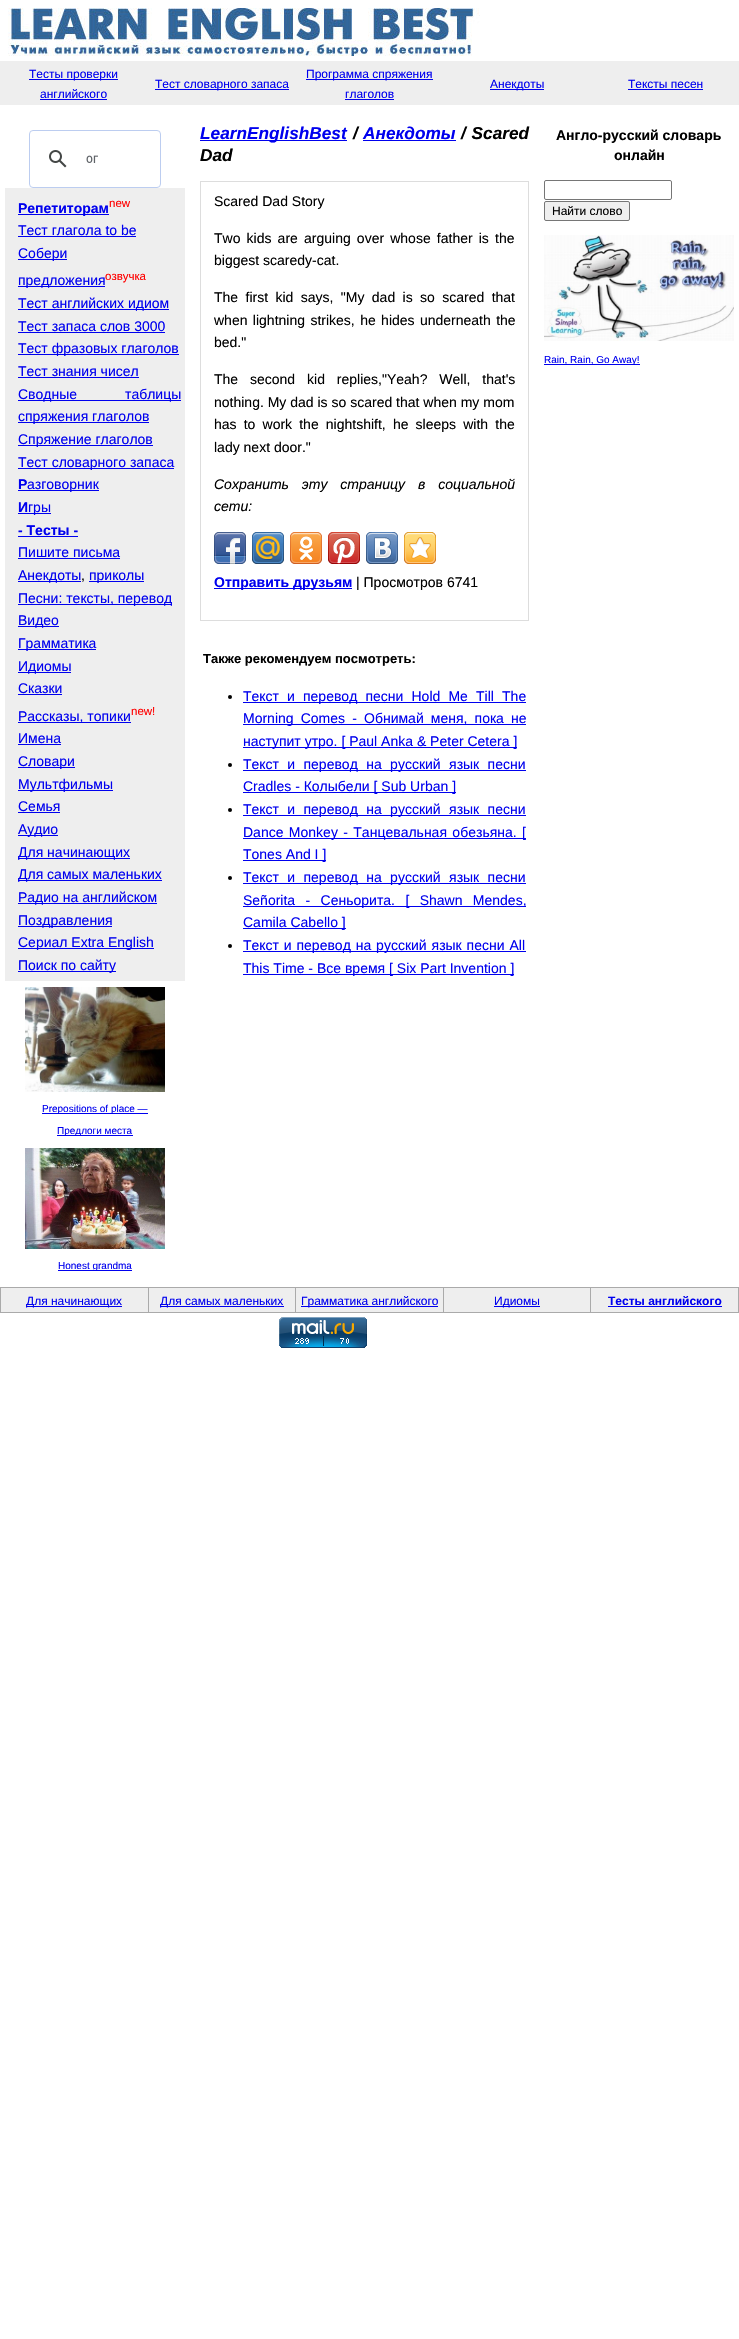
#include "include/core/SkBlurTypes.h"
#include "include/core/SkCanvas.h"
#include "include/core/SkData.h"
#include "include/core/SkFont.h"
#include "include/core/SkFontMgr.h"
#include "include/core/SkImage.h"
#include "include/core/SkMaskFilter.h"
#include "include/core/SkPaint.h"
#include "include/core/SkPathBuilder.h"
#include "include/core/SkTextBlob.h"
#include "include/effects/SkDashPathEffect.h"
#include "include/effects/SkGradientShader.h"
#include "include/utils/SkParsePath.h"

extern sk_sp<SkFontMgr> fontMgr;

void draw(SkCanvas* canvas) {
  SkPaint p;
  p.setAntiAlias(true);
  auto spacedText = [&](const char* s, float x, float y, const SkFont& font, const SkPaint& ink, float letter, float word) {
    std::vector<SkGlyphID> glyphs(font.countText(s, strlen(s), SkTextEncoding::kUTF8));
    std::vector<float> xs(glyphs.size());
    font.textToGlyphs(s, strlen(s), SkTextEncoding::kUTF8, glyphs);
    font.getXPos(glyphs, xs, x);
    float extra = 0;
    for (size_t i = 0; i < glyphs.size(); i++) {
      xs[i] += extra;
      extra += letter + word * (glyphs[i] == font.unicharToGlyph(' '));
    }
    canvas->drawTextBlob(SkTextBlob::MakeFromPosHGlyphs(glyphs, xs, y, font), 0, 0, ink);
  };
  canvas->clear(SK_ColorWHITE);
  canvas->drawImageRect(SkImages::DeferredFromEncodedData(SkData::MakeFromFileName("images/1.png")), SkRect::MakeLTRB(8, 8, 480, 56), SkSamplingOptions());
  p.setColor(SkColorSetRGB(238, 238, 238));
  canvas->drawRect(SkRect::MakeLTRB(0, 61, 739, 105), p);
  p.setColor(SkColorSetRGB(0, 0, 238));
  canvas->drawRect(SkRect::MakeLTRB(29, 79, 118, 80), p);
  canvas->drawRect(SkRect::MakeLTRB(40, 99, 107, 100), p);
  canvas->drawRect(SkRect::MakeLTRB(155, 89, 289, 90), p);
  canvas->drawRect(SkRect::MakeLTRB(306, 79, 433, 80), p);
  canvas->drawRect(SkRect::MakeLTRB(345, 99, 394, 100), p);
  canvas->drawRect(SkRect::MakeLTRB(490, 89, 544, 90), p);
  canvas->drawRect(SkRect::MakeLTRB(628, 89, 703, 90), p);
  p.setStyle(SkPaint::kStroke_Style);
  p.setStrokeWidth(1);
  p.setColor(SkColorSetRGB(188, 205, 240));
  canvas->drawRoundRect(SkRect::MakeLTRB(29.5f, 130.5f, 160.5f, 187.5f), 3.5f, 3.5f, p);
  canvas->drawImageRect(SkImages::DeferredFromEncodedData(SkData::MakeFromFileName("images/2.png")), SkRect::MakeLTRB(49, 150, 67, 168), SkSamplingOptions());
  canvas->drawImageRect(SkImages::DeferredFromEncodedData(SkData::MakeFromFileName("images/3.png")), SkRect::MakeLTRB(86, 155, 98, 163), SkSamplingOptions());
  p.setStyle(SkPaint::kFill_Style);
  p.setColor(SkColorSetRGB(238, 238, 238));
  canvas->drawRect(SkRect::MakeLTRB(5, 188, 185, 981), p);
  p.setColor(SkColorSetRGB(0, 0, 238));
  canvas->drawRect(SkRect::MakeLTRB(18, 214, 109, 215), p);
  canvas->drawRect(SkRect::MakeLTRB(18, 236, 136, 237), p);
  canvas->drawRect(SkRect::MakeLTRB(18, 259, 67, 260), p);
  canvas->drawRect(SkRect::MakeLTRB(18, 286, 105, 287), p);
  canvas->drawRect(SkRect::MakeLTRB(18, 309, 169, 310), p);
  canvas->drawRect(SkRect::MakeLTRB(18, 332, 165, 333), p);
  canvas->drawRect(SkRect::MakeLTRB(18, 354, 179, 355), p);
  canvas->drawRect(SkRect::MakeLTRB(18, 377, 139, 378), p);
  canvas->drawRect(SkRect::MakeLTRB(18, 400, 181, 401), p);
  canvas->drawRect(SkRect::MakeLTRB(18, 422, 149, 423), p);
  canvas->drawRect(SkRect::MakeLTRB(18, 445, 153, 446), p);
  canvas->drawRect(SkRect::MakeLTRB(18, 468, 174, 469), p);
  canvas->drawRect(SkRect::MakeLTRB(18, 490, 99, 491), p);
  canvas->drawRect(SkRect::MakeLTRB(18, 513, 51, 514), p);
  canvas->drawRect(SkRect::MakeLTRB(18, 536, 78, 537), p);
  canvas->drawRect(SkRect::MakeLTRB(18, 558, 120, 559), p);
  canvas->drawRect(SkRect::MakeLTRB(18, 581, 81, 582), p);
  canvas->drawRect(SkRect::MakeLTRB(89, 581, 144, 582), p);
  canvas->drawRect(SkRect::MakeLTRB(18, 604, 172, 605), p);
  canvas->drawRect(SkRect::MakeLTRB(18, 626, 59, 627), p);
  canvas->drawRect(SkRect::MakeLTRB(18, 649, 96, 650), p);
  canvas->drawRect(SkRect::MakeLTRB(18, 672, 71, 673), p);
  canvas->drawRect(SkRect::MakeLTRB(18, 694, 62, 695), p);
  canvas->drawRect(SkRect::MakeLTRB(18, 722, 131, 723), p);
  canvas->drawRect(SkRect::MakeLTRB(18, 744, 61, 745), p);
  canvas->drawRect(SkRect::MakeLTRB(18, 767, 75, 768), p);
  canvas->drawRect(SkRect::MakeLTRB(18, 790, 113, 791), p);
  canvas->drawRect(SkRect::MakeLTRB(18, 812, 60, 813), p);
  canvas->drawRect(SkRect::MakeLTRB(18, 835, 58, 836), p);
  canvas->drawRect(SkRect::MakeLTRB(18, 858, 130, 859), p);
  canvas->drawRect(SkRect::MakeLTRB(18, 880, 162, 881), p);
  canvas->drawRect(SkRect::MakeLTRB(18, 903, 157, 904), p);
  canvas->drawRect(SkRect::MakeLTRB(18, 926, 112, 927), p);
  canvas->drawRect(SkRect::MakeLTRB(18, 948, 154, 949), p);
  canvas->drawRect(SkRect::MakeLTRB(18, 971, 116, 972), p);
  canvas->drawImageRect(SkImages::DeferredFromEncodedData(SkData::MakeFromFileName("images/4.png")), SkRect::MakeLTRB(25, 987, 165, 1092), SkSamplingOptions());
  canvas->drawRect(SkRect::MakeLTRB(42, 1113, 148, 1114), p);
  canvas->drawRect(SkRect::MakeLTRB(57, 1135, 133, 1136), p);
  canvas->drawImageRect(SkImages::DeferredFromEncodedData(SkData::MakeFromFileName("images/5.png")), SkRect::MakeLTRB(25, 1148, 165, 1249), SkSamplingOptions());
  canvas->drawRect(SkRect::MakeLTRB(58, 1270, 132, 1271), p);
  canvas->drawRect(SkRect::MakeLTRB(200, 140, 347, 141), p);
  canvas->drawRect(SkRect::MakeLTRB(363, 140, 456, 141), p);
  p.setColor(SkColorSetRGB(221, 221, 221));
  canvas->drawRect(SkRect::MakeLTRB(200, 181, 529, 621), p);
  p.setColor(SK_ColorWHITE);
  canvas->drawRect(SkRect::MakeLTRB(201, 182, 528, 620), p);
  canvas->drawImageRect(SkImages::DeferredFromEncodedData(SkData::MakeFromFileName("images/6.png")), SkRect::MakeLTRB(214, 532, 246, 564), SkSamplingOptions());
  canvas->drawImageRect(SkImages::DeferredFromEncodedData(SkData::MakeFromFileName("images/7.png")), SkRect::MakeLTRB(252, 532, 284, 564), SkSamplingOptions());
  canvas->drawImageRect(SkImages::DeferredFromEncodedData(SkData::MakeFromFileName("images/8.png")), SkRect::MakeLTRB(290, 532, 322, 564), SkSamplingOptions());
  canvas->drawImageRect(SkImages::DeferredFromEncodedData(SkData::MakeFromFileName("images/9.png")), SkRect::MakeLTRB(328, 532, 360, 564), SkSamplingOptions());
  canvas->drawImageRect(SkImages::DeferredFromEncodedData(SkData::MakeFromFileName("images/10.png")), SkRect::MakeLTRB(366, 532, 398, 564), SkSamplingOptions());
  canvas->drawImageRect(SkImages::DeferredFromEncodedData(SkData::MakeFromFileName("images/11.png")), SkRect::MakeLTRB(404, 532, 436, 564), SkSamplingOptions());
  p.setColor(SkColorSetRGB(0, 0, 238));
  canvas->drawRect(SkRect::MakeLTRB(214, 588, 352, 589), p);
  p.setColor(SK_ColorBLACK);
  canvas->drawCircle(230, 697, 2, p);
  p.setColor(SkColorSetRGB(0, 0, 238));
  canvas->drawRect(SkRect::MakeLTRB(243, 702, 526, 703), p);
  canvas->drawRect(SkRect::MakeLTRB(243, 724, 526, 725), p);
  canvas->drawRect(SkRect::MakeLTRB(243, 747, 517, 748), p);
  p.setColor(SK_ColorBLACK);
  canvas->drawCircle(230, 765, 2, p);
  p.setColor(SkColorSetRGB(0, 0, 238));
  canvas->drawRect(SkRect::MakeLTRB(243, 770, 526, 771), p);
  canvas->drawRect(SkRect::MakeLTRB(243, 792, 456, 793), p);
  p.setColor(SK_ColorBLACK);
  canvas->drawCircle(230, 810, 2, p);
  p.setColor(SkColorSetRGB(0, 0, 238));
  canvas->drawRect(SkRect::MakeLTRB(243, 815, 526, 816), p);
  canvas->drawRect(SkRect::MakeLTRB(243, 838, 526, 839), p);
  canvas->drawRect(SkRect::MakeLTRB(243, 860, 326, 861), p);
  p.setColor(SK_ColorBLACK);
  canvas->drawCircle(230, 878, 2, p);
  p.setColor(SkColorSetRGB(0, 0, 238));
  canvas->drawRect(SkRect::MakeLTRB(243, 883, 526, 884), p);
  canvas->drawRect(SkRect::MakeLTRB(243, 906, 526, 907), p);
  canvas->drawRect(SkRect::MakeLTRB(243, 928, 346, 929), p);
  p.setColor(SK_ColorBLACK);
  canvas->drawCircle(230, 946, 2, p);
  p.setColor(SkColorSetRGB(0, 0, 238));
  canvas->drawRect(SkRect::MakeLTRB(243, 951, 526, 952), p);
  canvas->drawRect(SkRect::MakeLTRB(243, 974, 514, 975), p);
  p.setStyle(SkPaint::kStroke_Style);
  p.setColor(SkColorSetRGB(118, 118, 118));
  canvas->drawRoundRect(SkRect::MakeLTRB(544.5f, 180.5f, 671.5f, 199.5f), 1.5f, 1.5f, p);
  p.setStyle(SkPaint::kFill_Style);
  p.setColor(SkColorSetRGB(239, 239, 239));
  canvas->drawRoundRect(SkRect::MakeLTRB(544.5f, 201.5f, 629.5f, 220.5f), 1.5f, 1.5f, p);
  p.setStyle(SkPaint::kStroke_Style);
  p.setColor(SkColorSetRGB(118, 118, 118));
  canvas->drawRoundRect(SkRect::MakeLTRB(544.5f, 201.5f, 629.5f, 220.5f), 1.5f, 1.5f, p);
  canvas->drawImageRect(SkImages::DeferredFromEncodedData(SkData::MakeFromFileName("images/12.png")), SkRect::MakeLTRB(544, 235, 734, 341), SkSamplingOptions());
  p.setStyle(SkPaint::kFill_Style);
  p.setColor(SkColorSetRGB(0, 0, 238));
  canvas->drawRect(SkRect::MakeLTRB(544, 364, 640, 365), p);
  p.setColor(SkColorSetRGB(170, 170, 170));
  canvas->drawRect(SkRect::MakeLTRB(0, 1287, 739, 1313), p);
  p.setColor(SkColorSetRGB(238, 238, 238));
  canvas->drawRect(SkRect::MakeLTRB(1, 1288, 148, 1312), p);
  p.setColor(SkColorSetRGB(0, 0, 238));
  canvas->drawRect(SkRect::MakeLTRB(26, 1306, 122, 1307), p);
  p.setColor(SkColorSetRGB(238, 238, 238));
  canvas->drawRect(SkRect::MakeLTRB(149, 1288, 295, 1312), p);
  p.setColor(SkColorSetRGB(0, 0, 238));
  canvas->drawRect(SkRect::MakeLTRB(160, 1306, 284, 1307), p);
  p.setColor(SkColorSetRGB(238, 238, 238));
  canvas->drawRect(SkRect::MakeLTRB(296, 1288, 443, 1312), p);
  p.setColor(SkColorSetRGB(0, 0, 238));
  canvas->drawRect(SkRect::MakeLTRB(301, 1306, 438, 1307), p);
  p.setColor(SkColorSetRGB(238, 238, 238));
  canvas->drawRect(SkRect::MakeLTRB(444, 1288, 590, 1312), p);
  p.setColor(SkColorSetRGB(0, 0, 238));
  canvas->drawRect(SkRect::MakeLTRB(494, 1306, 540, 1307), p);
  p.setColor(SkColorSetRGB(238, 238, 238));
  canvas->drawRect(SkRect::MakeLTRB(591, 1288, 738, 1312), p);
  p.setColor(SkColorSetRGB(0, 0, 238));
  canvas->drawRect(SkRect::MakeLTRB(608, 1306, 722, 1307), p);
  canvas->drawImageRect(SkImages::DeferredFromEncodedData(SkData::MakeFromFileName("images/13.png")), SkRect::MakeLTRB(279, 1317, 367, 1348), SkSamplingOptions());
  SkFont font1(fontMgr->matchFamilyStyle("Liberation Sans", SkFontStyle::Normal()), 12);
  font1.setSubpixel(true);
  canvas->drawString("Тесты проверки", 29, 78, font1, p);
  canvas->drawString("английского", 40, 98, font1, p);
  canvas->drawString("Тест словарного запаса", 155, 88, font1, p);
  canvas->drawString("Программа спряжения", 306, 78, font1, p);
  canvas->drawString("глаголов", 345, 98, font1, p);
  canvas->drawString("Анекдоты", 490, 88, font1, p);
  canvas->drawString("Тексты песен", 628, 88, font1, p);
  SkFont font2(fontMgr->matchFamilyStyle("Liberation Sans", SkFontStyle::Bold()), 14);
  font2.setSubpixel(true);
  canvas->drawString("Репетиторам", 18, 213, font2, p);
  SkFont font3(fontMgr->matchFamilyStyle("Liberation Sans", SkFontStyle::Normal()), 11.5f);
  font3.setSubpixel(true);
  p.setColor(SkColorSetRGB(255, 0, 0));
  canvas->drawString("new", 109, 207, font3, p);
  SkFont font4(fontMgr->matchFamilyStyle("Liberation Sans", SkFontStyle::Normal()), 14);
  font4.setSubpixel(true);
  p.setColor(SkColorSetRGB(0, 0, 238));
  canvas->drawString("Тест глагола to be", 18, 235, font4, p);
  canvas->drawString("Собери", 18, 258, font4, p);
  canvas->drawString("предложения", 18, 285, font4, p);
  p.setColor(SkColorSetRGB(255, 0, 0));
  canvas->drawString("озвучка", 105, 280, font3, p);
  p.setColor(SkColorSetRGB(0, 0, 238));
  canvas->drawString("Тест английских идиом", 18, 308, font4, p);
  canvas->drawString("Тест запаса слов 3000", 18, 331, font4, p);
  canvas->drawString("Тест фразовых глаголов", 18, 353, font4, p);
  canvas->drawString("Тест знания чисел", 18, 376, font4, p);
  spacedText("Сводные таблицы", 18, 399, font4, p, 0, 44);
  canvas->drawString("спряжения глаголов", 18, 421, font4, p);
  canvas->drawString("Спряжение глаголов", 18, 444, font4, p);
  canvas->drawString("Тест словарного запаса", 18, 467, font4, p);
  canvas->drawString("Р", 18, 489, font2, p);
  canvas->drawString("азговорник", 27, 489, font4, p);
  canvas->drawString("И", 18, 512, font2, p);
  canvas->drawString("гры", 28, 512, font4, p);
  canvas->drawString("- Тесты -", 18, 535, font2, p);
  canvas->drawString("Пишите письма", 18, 557, font4, p);
  canvas->drawString("Анекдоты", 18, 580, font4, p);
  p.setColor(SK_ColorBLACK);
  canvas->drawString(",", 81, 580, font4, p);
  p.setColor(SkColorSetRGB(0, 0, 238));
  canvas->drawString("приколы", 89, 580, font4, p);
  canvas->drawString("Песни: тексты, перевод", 18, 603, font4, p);
  canvas->drawString("Видео", 18, 625, font4, p);
  canvas->drawString("Грамматика", 18, 648, font4, p);
  canvas->drawString("Идиомы", 18, 671, font4, p);
  canvas->drawString("Сказки", 18, 693, font4, p);
  canvas->drawString("Рассказы, топики", 18, 721, font4, p);
  p.setColor(SkColorSetRGB(255, 0, 0));
  canvas->drawString("new!", 131, 715, font3, p);
  p.setColor(SkColorSetRGB(0, 0, 238));
  canvas->drawString("Имена", 18, 743, font4, p);
  canvas->drawString("Словари", 18, 766, font4, p);
  canvas->drawString("Мультфильмы", 18, 789, font4, p);
  canvas->drawString("Семья", 18, 811, font4, p);
  canvas->drawString("Аудио", 18, 834, font4, p);
  canvas->drawString("Для начинающих", 18, 857, font4, p);
  canvas->drawString("Для самых маленьких", 18, 879, font4, p);
  canvas->drawString("Радио на английском", 18, 902, font4, p);
  canvas->drawString("Поздравления", 18, 925, font4, p);
  canvas->drawString("Сериал Extra English", 18, 947, font4, p);
  canvas->drawString("Поиск по сайту", 18, 970, font4, p);
  SkFont font5(fontMgr->matchFamilyStyle("Liberation Sans", SkFontStyle::Normal()), 10);
  font5.setSubpixel(true);
  canvas->drawString("Prepositions of place —", 42, 1112, font5, p);
  canvas->drawString("Предлоги места", 57, 1134, font5, p);
  canvas->drawString("Honest grandma", 58, 1269, font5, p);
  SkFont font6(fontMgr->matchFamilyStyle("Liberation Sans", SkFontStyle::BoldItalic()), 17.25f);
  font6.setSubpixel(true);
  canvas->drawString("LearnEnglishBest", 200, 139, font6, p);
  p.setColor(SK_ColorBLACK);
  canvas->drawString("/", 353, 139, font6, p);
  p.setColor(SkColorSetRGB(0, 0, 238));
  canvas->drawString("Анекдоты", 363, 139, font6, p);
  p.setColor(SK_ColorBLACK);
  spacedText("/ Scared", 461, 139, font6, p, 0, 1);
  canvas->drawString("Dad", 200, 161, font6, p);
  canvas->drawString("Scared Dad Story", 214, 206, font4, p);
  spacedText("Two kids are arguing over whose father is the", 214, 243, font4, p, 0, 2.25f);
  canvas->drawString("biggest scaredy-cat.", 214, 265, font4, p);
  spacedText("The first kid says, \"My dad is so scared that", 214, 302, font4, p, 0, 3.5f);
  spacedText("when lightning strikes, he hides underneath the", 214, 325, font4, p, 0, 1.5f);
  canvas->drawString("bed.\"", 214, 347, font4, p);
  spacedText("The second kid replies,\"Yeah? Well, that's", 214, 384, font4, p, 0, 8);
  canvas->drawString("nothing. My dad is so scared that when my mom", 214, 407, font4, p);
  spacedText("has to work the nightshift, he sleeps with the", 214, 429, font4, p, 0, 3.25f);
  canvas->drawString("lady next door.\"", 214, 452, font4, p);
  SkFont font7(fontMgr->matchFamilyStyle("Liberation Sans", SkFontStyle::Italic()), 14);
  font7.setSubpixel(true);
  spacedText("Сохранить эту страницу в социальной", 214, 489, font7, p, 0, 9);
  canvas->drawString("сети:", 214, 511, font7, p);
  p.setColor(SkColorSetRGB(0, 0, 238));
  canvas->drawString("Отправить друзьям", 214, 587, font2, p);
  p.setColor(SK_ColorBLACK);
  canvas->drawString("| Просмотров 6741", 356, 587, font4, p);
  SkFont font8(fontMgr->matchFamilyStyle("Liberation Sans", SkFontStyle::Bold()), 13);
  font8.setSubpixel(true);
  canvas->drawString("Также рекомендуем посмотреть:", 203, 663, font8, p);
  p.setColor(SkColorSetRGB(0, 0, 238));
  spacedText("Текст и перевод песни Hold Me Till The", 243, 701, font4, p, 0, 4.25f);
  spacedText("Morning Comes - Обнимай меня, пока не", 243, 723, font4, p, 0, 3.25f);
  canvas->drawString("наступит утро. [ Paul Anka & Peter Cetera ]", 243, 746, font4, p);
  spacedText("Текст и перевод на русский язык песни", 243, 769, font4, p, 0, 4.5f);
  canvas->drawString("Cradles - Колыбели [ Sub Urban ]", 243, 791, font4, p);
  spacedText("Текст и перевод на русский язык песни", 243, 814, font4, p, 0, 4.5f);
  spacedText("Dance Monkey - Танцевальная обезьяна. [", 243, 837, font4, p, 0, 1.5f);
  canvas->drawString("Tones And I ]", 243, 859, font4, p);
  spacedText("Текст и перевод на русский язык песни", 243, 882, font4, p, 0, 4.5f);
  spacedText("Señorita - Сеньорита. [ Shawn Mendes,", 243, 905, font4, p, 0, 6.5f);
  canvas->drawString("Camila Cabello ]", 243, 927, font4, p);
  spacedText("Текст и перевод на русский язык песни All", 243, 950, font4, p, 0, 1);
  canvas->drawString("This Time - Все время [ Six Part Invention ]", 243, 973, font4, p);
  p.setColor(SK_ColorBLACK);
  canvas->drawString("Англо-русский словарь", 556, 140, font2, p);
  canvas->drawString("онлайн", 614, 160, font2, p);
  canvas->drawString("Найти слово", 552, 215, font1, p);
  p.setColor(SkColorSetRGB(0, 0, 238));
  canvas->drawString("Rain, Rain, Go Away!", 544, 363, font5, p);
  canvas->drawString("Для начинающих", 26, 1305, font1, p);
  canvas->drawString("Для самых маленьких", 160, 1305, font1, p);
  canvas->drawString("Грамматика английского", 301, 1305, font1, p);
  canvas->drawString("Идиомы", 494, 1305, font1, p);
  SkFont font9(fontMgr->matchFamilyStyle("Liberation Sans", SkFontStyle::Bold()), 12);
  font9.setSubpixel(true);
  canvas->drawString("Тесты английского", 608, 1305, font9, p);
}
